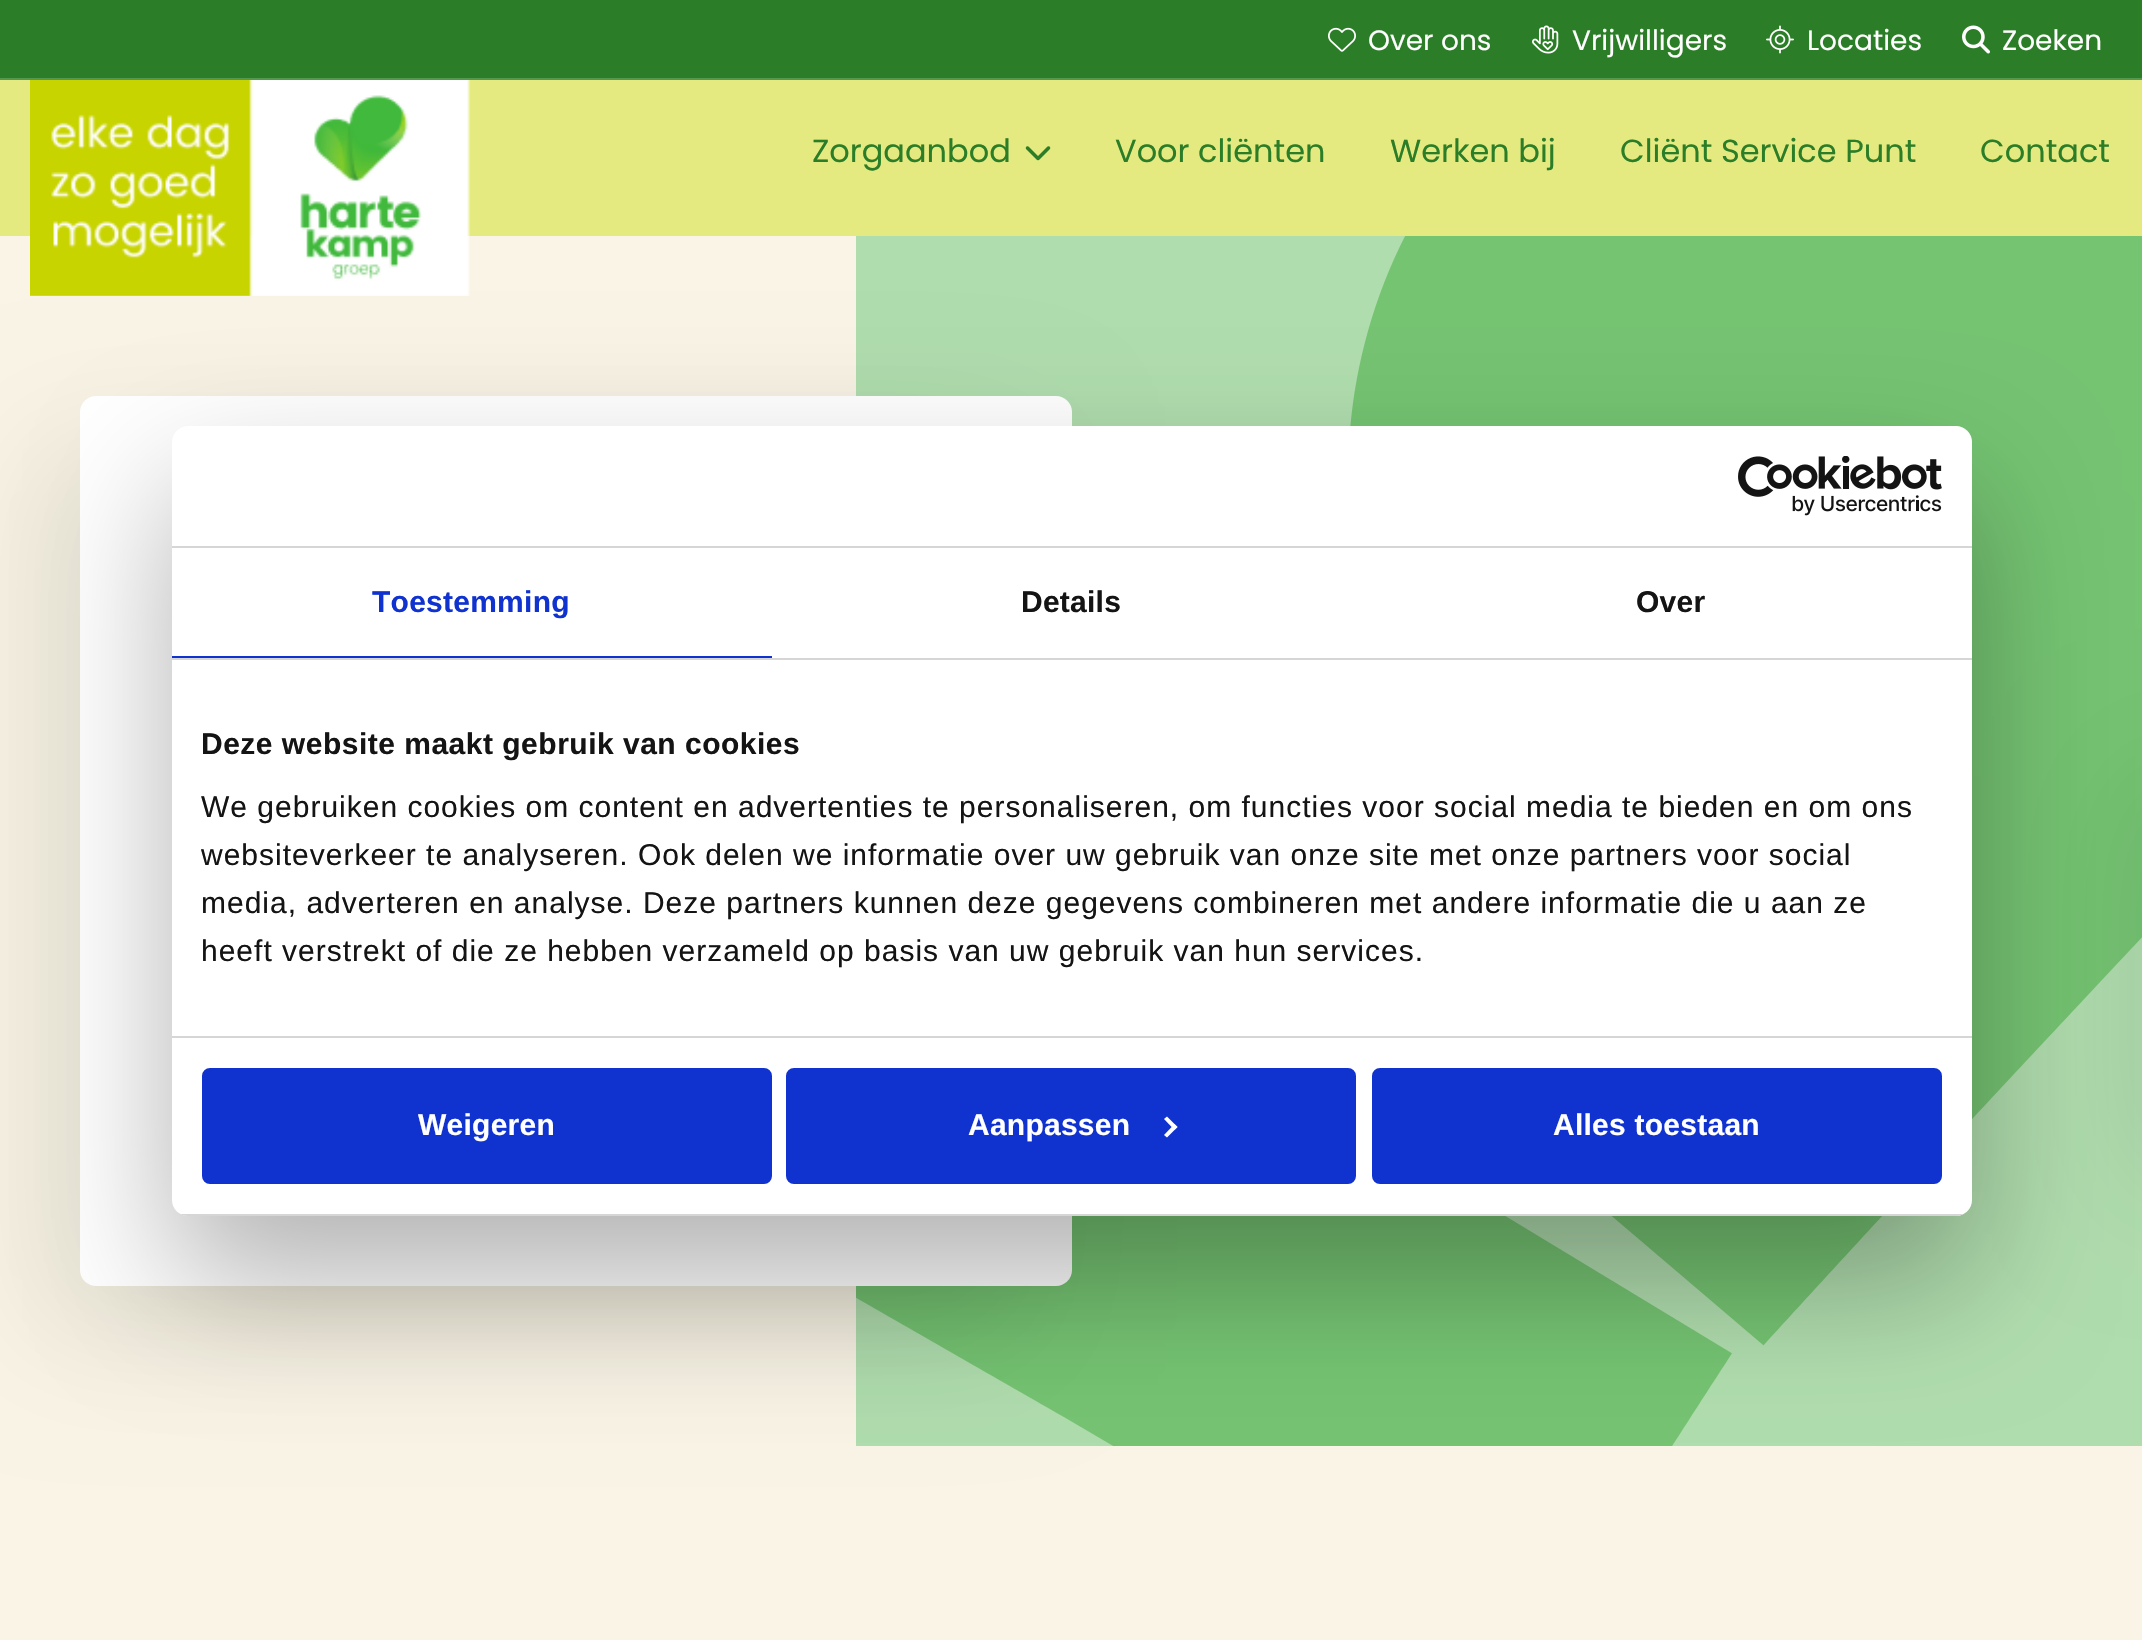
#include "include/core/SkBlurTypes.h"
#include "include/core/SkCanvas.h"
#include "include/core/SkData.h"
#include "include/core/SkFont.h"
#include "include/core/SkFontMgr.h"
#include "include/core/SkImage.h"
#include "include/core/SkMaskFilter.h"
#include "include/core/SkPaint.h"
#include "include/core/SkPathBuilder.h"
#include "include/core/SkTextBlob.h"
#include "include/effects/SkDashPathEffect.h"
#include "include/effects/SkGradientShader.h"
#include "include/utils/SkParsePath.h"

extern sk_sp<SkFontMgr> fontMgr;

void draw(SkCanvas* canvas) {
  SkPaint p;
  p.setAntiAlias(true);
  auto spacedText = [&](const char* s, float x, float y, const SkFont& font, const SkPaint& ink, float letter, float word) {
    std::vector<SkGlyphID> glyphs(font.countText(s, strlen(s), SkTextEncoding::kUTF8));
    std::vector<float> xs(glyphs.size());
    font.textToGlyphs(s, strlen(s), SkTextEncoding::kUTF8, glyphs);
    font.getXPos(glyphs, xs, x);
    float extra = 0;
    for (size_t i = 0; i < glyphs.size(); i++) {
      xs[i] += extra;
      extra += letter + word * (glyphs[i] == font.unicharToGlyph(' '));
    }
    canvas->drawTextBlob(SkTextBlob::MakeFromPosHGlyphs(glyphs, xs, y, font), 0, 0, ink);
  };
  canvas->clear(SkColorSetRGB(249, 244, 229));
  p.setColor(SkColorSetRGB(43, 126, 39));
  canvas->drawRect(SkRect::MakeLTRB(0, 0, 2142, 78), p);
  canvas->drawImageRect(SkImages::DeferredFromEncodedData(SkData::MakeFromFileName("images/1.png")), SkRect::MakeLTRB(1328, 27, 1356, 52), SkSamplingOptions());
  canvas->drawImageRect(SkImages::DeferredFromEncodedData(SkData::MakeFromFileName("images/2.png")), SkRect::MakeLTRB(1532, 25, 1559, 54), SkSamplingOptions());
  canvas->drawImageRect(SkImages::DeferredFromEncodedData(SkData::MakeFromFileName("images/3.png")), SkRect::MakeLTRB(1766, 25, 1794, 54), SkSamplingOptions());
  canvas->drawImageRect(SkImages::DeferredFromEncodedData(SkData::MakeFromFileName("images/4.png")), SkRect::MakeLTRB(1962, 25, 1990, 54), SkSamplingOptions());
  p.setColor(SkColorSetRGB(85, 152, 82));
  canvas->drawRect(SkRect::MakeLTRB(0, 78, 2142, 80), p);
  p.setColor(SkColorSetRGB(228, 233, 128));
  canvas->drawRect(SkRect::MakeLTRB(0, 80, 2142, 236), p);
  canvas->drawImageRect(SkImages::DeferredFromEncodedData(SkData::MakeFromFileName("images/7.png")), SkRect::MakeLTRB(856, 236, 2142, 1446), SkSamplingOptions());
  p.setColor(SkColorSetARGB(20, 0, 0, 0));
  p.setMaskFilter(SkMaskFilter::MakeBlur(kNormal_SkBlurStyle, 64));
  canvas->drawRoundRect(SkRect::MakeLTRB(32, 444, 1024, 1334), 16, 16, p);
  p.setMaskFilter(nullptr);
  canvas->drawImageRect(SkImages::DeferredFromEncodedData(SkData::MakeFromFileName("images/5.png")), SkRect::MakeLTRB(30, 80, 470, 296), SkSamplingOptions());
  canvas->drawImageRect(SkImages::DeferredFromEncodedData(SkData::MakeFromFileName("images/6.png")), SkRect::MakeLTRB(1025, 146, 1051, 161), SkSamplingOptions());
  p.setMaskFilter(SkMaskFilter::MakeBlur(kNormal_SkBlurStyle, 64));
  canvas->drawRect(SkRect::MakeLTRB(2126, 776, 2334, 1192), p);
  p.setMaskFilter(nullptr);
  p.setColor(SK_ColorWHITE);
  canvas->drawRoundRect(SkRect::MakeLTRB(80, 396, 1072, 1286), 16, 16, p);
  p.setColor(SkColorSetARGB(77, 0, 0, 0));
  p.setMaskFilter(SkMaskFilter::MakeBlur(kNormal_SkBlurStyle, 68));
  canvas->drawRoundRect(SkRect::MakeLTRB(172, 490, 1972, 1280), 16, 16, p);
  p.setMaskFilter(nullptr);
  p.setColor(SK_ColorWHITE);
  canvas->drawRoundRect(SkRect::MakeLTRB(172, 426, 1972, 1216), 16, 16, p);
  p.setColor(SkColorSetRGB(214, 214, 214));
  canvas->drawRect(SkRect::MakeLTRB(172, 546, 1972, 548), p);
  canvas->drawImageRect(SkImages::DeferredFromEncodedData(SkData::MakeFromFileName("images/8.png")), SkRect::MakeLTRB(1738, 456, 1942, 516), SkSamplingOptions());
  canvas->drawRect(SkRect::MakeLTRB(172, 658, 1972, 660), p);
  p.setColor(SkColorSetRGB(16, 50, 207));
  canvas->drawRect(SkRect::MakeLTRB(172, 656, 772, 658), p);
  p.setColor(SkColorSetRGB(214, 214, 214));
  canvas->drawRect(SkRect::MakeLTRB(172, 1036, 1972, 1038), p);
  canvas->save();
  canvas->clipPath(SkPathBuilder().moveTo(188, 426).lineTo(1956, 426).cubicTo(1965, 426, 1972, 433, 1972, 442).lineTo(1972, 1200).cubicTo(1972, 1209, 1965, 1216, 1956, 1216).lineTo(188, 1216).cubicTo(179, 1216, 172, 1209, 172, 1200).lineTo(172, 442).cubicTo(172, 433, 179, 426, 188, 426).close().detach(), true);
  canvas->drawRect(SkRect::MakeLTRB(172, 1214, 1972, 1216), p);
  canvas->restore();
  p.setColor(SkColorSetRGB(16, 50, 207));
  canvas->drawRoundRect(SkRect::MakeLTRB(204, 1070, 770, 1182), 6, 6, p);
  p.setStyle(SkPaint::kStroke_Style);
  p.setStrokeWidth(4);
  canvas->drawRoundRect(SkRect::MakeLTRB(204, 1070, 770, 1182), 6, 6, p);
  p.setStyle(SkPaint::kFill_Style);
  canvas->drawRoundRect(SkRect::MakeLTRB(788, 1070, 1354, 1182), 6, 6, p);
  p.setStyle(SkPaint::kStroke_Style);
  canvas->drawRoundRect(SkRect::MakeLTRB(788, 1070, 1354, 1182), 6, 6, p);
  p.setStyle(SkPaint::kFill_Style);
  p.setColor(SK_ColorWHITE);
  canvas->drawPath(SkPathBuilder().moveTo(1167, 1116.5f).lineTo(1177.5f, 1127).lineTo(1174.5f, 1130).lineTo(1164, 1119).close().detach(), p);
  canvas->drawPath(SkPathBuilder().moveTo(1174.5f, 1124).lineTo(1177.5f, 1127).lineTo(1167, 1137.5f).lineTo(1164, 1135).close().detach(), p);
  p.setColor(SkColorSetRGB(16, 50, 207));
  canvas->drawRoundRect(SkRect::MakeLTRB(1374, 1070, 1940, 1182), 6, 6, p);
  p.setStyle(SkPaint::kStroke_Style);
  canvas->drawRoundRect(SkRect::MakeLTRB(1374, 1070, 1940, 1182), 6, 6, p);
  SkFont font1(fontMgr->matchFamilyStyle("Poppins", SkFontStyle::Normal()), 28);
  font1.setSubpixel(true);
  p.setStyle(SkPaint::kFill_Style);
  p.setColor(SK_ColorWHITE);
  canvas->drawString("Over ons", 1368, 50, font1, p);
  canvas->drawString("Vrijwilligers", 1572, 50, font1, p);
  canvas->drawString("Locaties", 1807, 50, font1, p);
  canvas->drawString("Zoeken", 2002, 50, font1, p);
  SkFont font2(fontMgr->matchFamilyStyle("Poppins", SkFontStyle::Normal()), 32);
  font2.setSubpixel(true);
  p.setColor(SkColorSetRGB(43, 126, 39));
  canvas->drawString("Zorgaanbod", 812, 162, font2, p);
  canvas->drawString("Voor cliënten", 1115, 162, font2, p);
  canvas->drawString("Werken bij", 1390, 162, font2, p);
  canvas->drawString("Cliënt Service Punt", 1620, 162, font2, p);
  canvas->drawString("Contact", 1980, 162, font2, p);
  SkFont font3(fontMgr->matchFamilyStyle("Liberation Sans", SkFontStyle::Bold()), 30);
  font3.setSubpixel(true);
  p.setColor(SkColorSetRGB(16, 50, 207));
  spacedText("Toestemming", 372, 612, font3, p, 0.25f, 0);
  p.setColor(SkColorSetRGB(20, 20, 20));
  spacedText("Details", 1021, 612, font3, p, 0.25f, 0);
  spacedText("Over", 1636, 612, font3, p, 0.25f, 0);
  spacedText("Deze website maakt gebruik van cookies", 201, 754, font3, p, 0.5f, 0);
  SkFont font4(fontMgr->matchFamilyStyle("Liberation Sans", SkFontStyle::Normal()), 30);
  font4.setSubpixel(true);
  spacedText("We gebruiken cookies om content en advertenties te personaliseren, om functies voor social media te bieden en om ons", 201, 817, font4, p, 1, 0);
  spacedText("websiteverkeer te analyseren. Ook delen we informatie over uw gebruik van onze site met onze partners voor social", 201, 865, font4, p, 1, 0);
  spacedText("media, adverteren en analyse. Deze partners kunnen deze gegevens combineren met andere informatie die u aan ze", 201, 913, font4, p, 1, 0);
  spacedText("heeft verstrekt of die ze hebben verzameld op basis van uw gebruik van hun services.", 201, 961, font4, p, 1, 0);
  p.setColor(SK_ColorWHITE);
  spacedText("Weigeren", 418, 1135, font3, p, 0.25f, 0);
  spacedText("Aanpassen", 968, 1135, font3, p, 0.25f, 0);
  spacedText("Alles toestaan", 1553, 1135, font3, p, 0.25f, 0);
}
